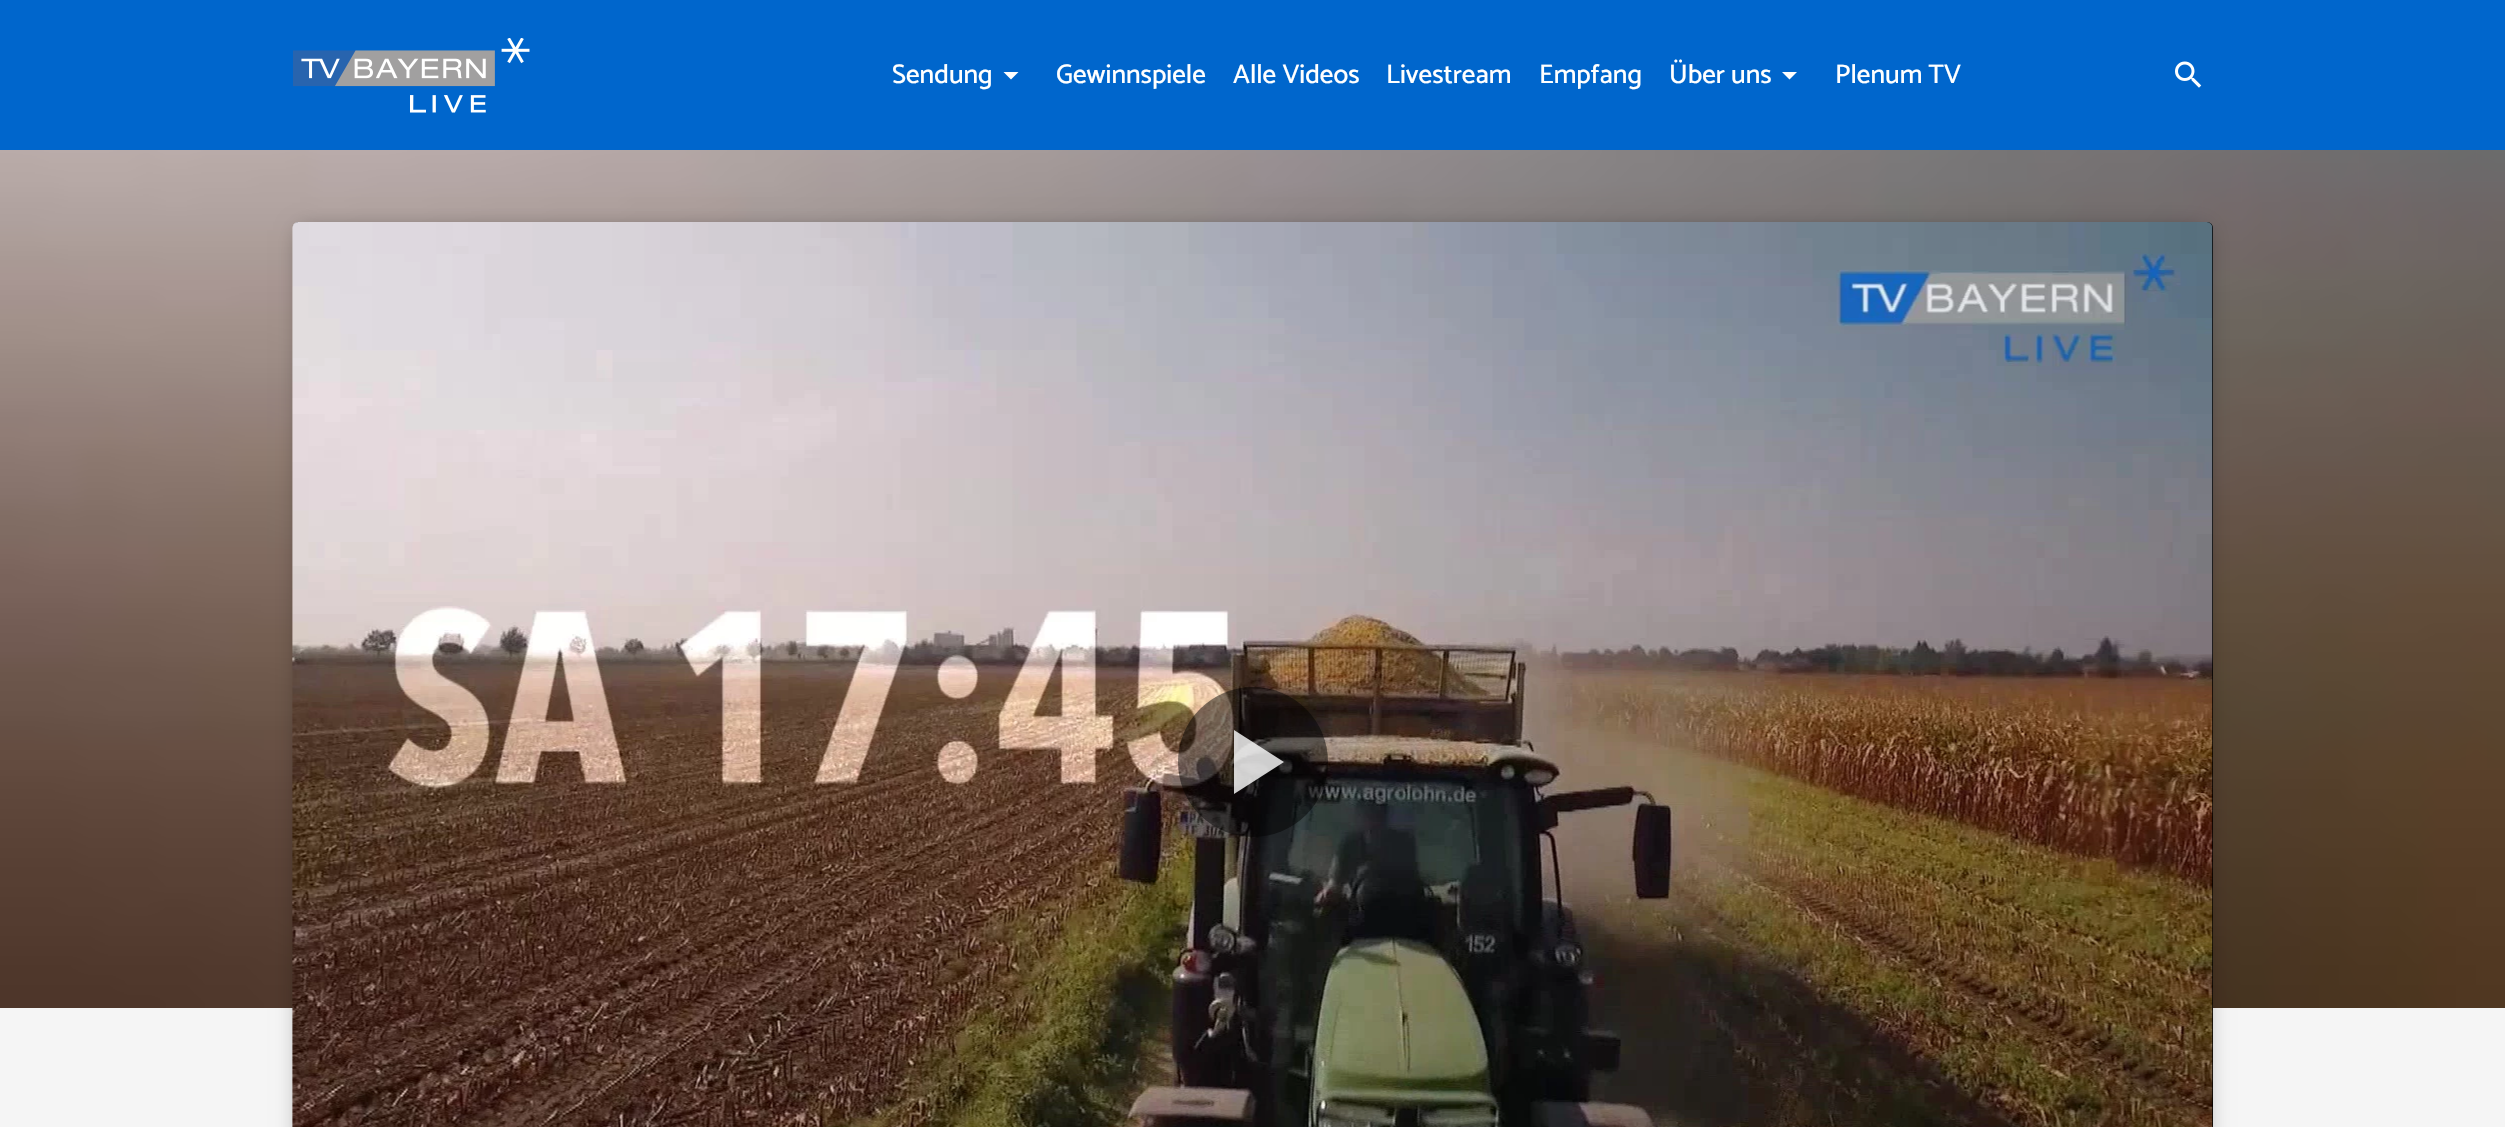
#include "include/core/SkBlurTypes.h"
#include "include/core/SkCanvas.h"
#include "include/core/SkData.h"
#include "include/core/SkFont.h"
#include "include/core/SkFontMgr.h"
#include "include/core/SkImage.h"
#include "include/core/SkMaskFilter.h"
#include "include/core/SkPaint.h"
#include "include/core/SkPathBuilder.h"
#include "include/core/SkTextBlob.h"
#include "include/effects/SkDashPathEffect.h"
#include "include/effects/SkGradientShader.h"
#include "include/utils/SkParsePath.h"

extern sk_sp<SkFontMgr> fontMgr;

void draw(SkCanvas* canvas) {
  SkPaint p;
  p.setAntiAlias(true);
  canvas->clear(SkColorSetRGB(245, 245, 245));
  p.setColor(SkColorSetRGB(0, 102, 204));
  canvas->drawRect(SkRect::MakeLTRB(0, 0, 2505, 150), p);
  canvas->drawImageRect(SkImages::DeferredFromEncodedData(SkData::MakeFromFileName("images/1.png")), SkRect::MakeLTRB(293, 38, 530, 113), SkSamplingOptions());
  p.setColor(SK_ColorWHITE);
  canvas->drawPath(SkPathBuilder().moveTo(1003.5f, 72).lineTo(1018.5f, 72).lineTo(1011, 79.5f).close().detach(), p);
  canvas->drawPath(SkPathBuilder().moveTo(1782, 72).lineTo(1797, 72).lineTo(1789.5f, 79.5f).close().detach(), p);
  canvas->drawImageRect(SkImages::DeferredFromEncodedData(SkData::MakeFromFileName("images/2.png")), SkRect::MakeLTRB(2175, 61, 2202, 88), SkSamplingOptions());
  canvas->drawImageRect(SkImages::DeferredFromEncodedData(SkData::MakeFromFileName("images/3.png")), SkRect::MakeLTRB(0, 150, 2505, 1008), SkSamplingOptions());
  p.setColor(SkColorSetARGB(102, 0, 0, 0));
  p.setMaskFilter(SkMaskFilter::MakeBlur(kNormal_SkBlurStyle, 11));
  canvas->drawRect(SkRect::MakeLTRB(300, 230, 2205, 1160), p);
  p.setMaskFilter(nullptr);
  canvas->drawImageRect(SkImages::DeferredFromEncodedData(SkData::MakeFromFileName("images/4.png")), SkRect::MakeLTRB(292, 222, 2213, 1127), SkSamplingOptions());
  canvas->drawImageRect(SkImages::DeferredFromEncodedData(SkData::MakeFromFileName("images/5.png")), SkRect::MakeLTRB(292, 222, 2213, 1127), SkSamplingOptions());
  p.setColor(SK_ColorBLACK);
  canvas->drawRoundRect(SkRect::MakeLTRB(293, 222, 2213, 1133), 6, 6, p);
  canvas->drawImageRect(SkImages::DeferredFromEncodedData(SkData::MakeFromFileName("images/6.png")), SkRect::MakeLTRB(292, 222, 2213, 1127), SkSamplingOptions());
  p.setColor(SkColorSetARGB(122, 0, 0, 0));
  canvas->drawCircle(1253, 762, 75, p);
  p.setColor(SkColorSetARGB(204, 255, 255, 255));
  canvas->drawPath(SkPathBuilder().moveTo(1234, 730).lineTo(1234, 794).lineTo(1284, 762).close().detach(), p);
  SkFont font1(fontMgr->matchFamilyStyle("Catamaran", SkFontStyle(500, SkFontStyle::kNormal_Width, SkFontStyle::kUpright_Slant)), 27);
  font1.setSubpixel(true);
  p.setColor(SK_ColorWHITE);
  canvas->drawString("Sendung", 892, 83, font1, p);
  canvas->drawString("Gewinnspiele", 1056, 83, font1, p);
  canvas->drawString("Alle Videos", 1233, 83, font1, p);
  canvas->drawString("Livestream", 1386, 83, font1, p);
  canvas->drawString("Empfang", 1539, 83, font1, p);
  canvas->drawString("Über uns", 1669, 83, font1, p);
  canvas->drawString("Plenum TV", 1835, 83, font1, p);
}
